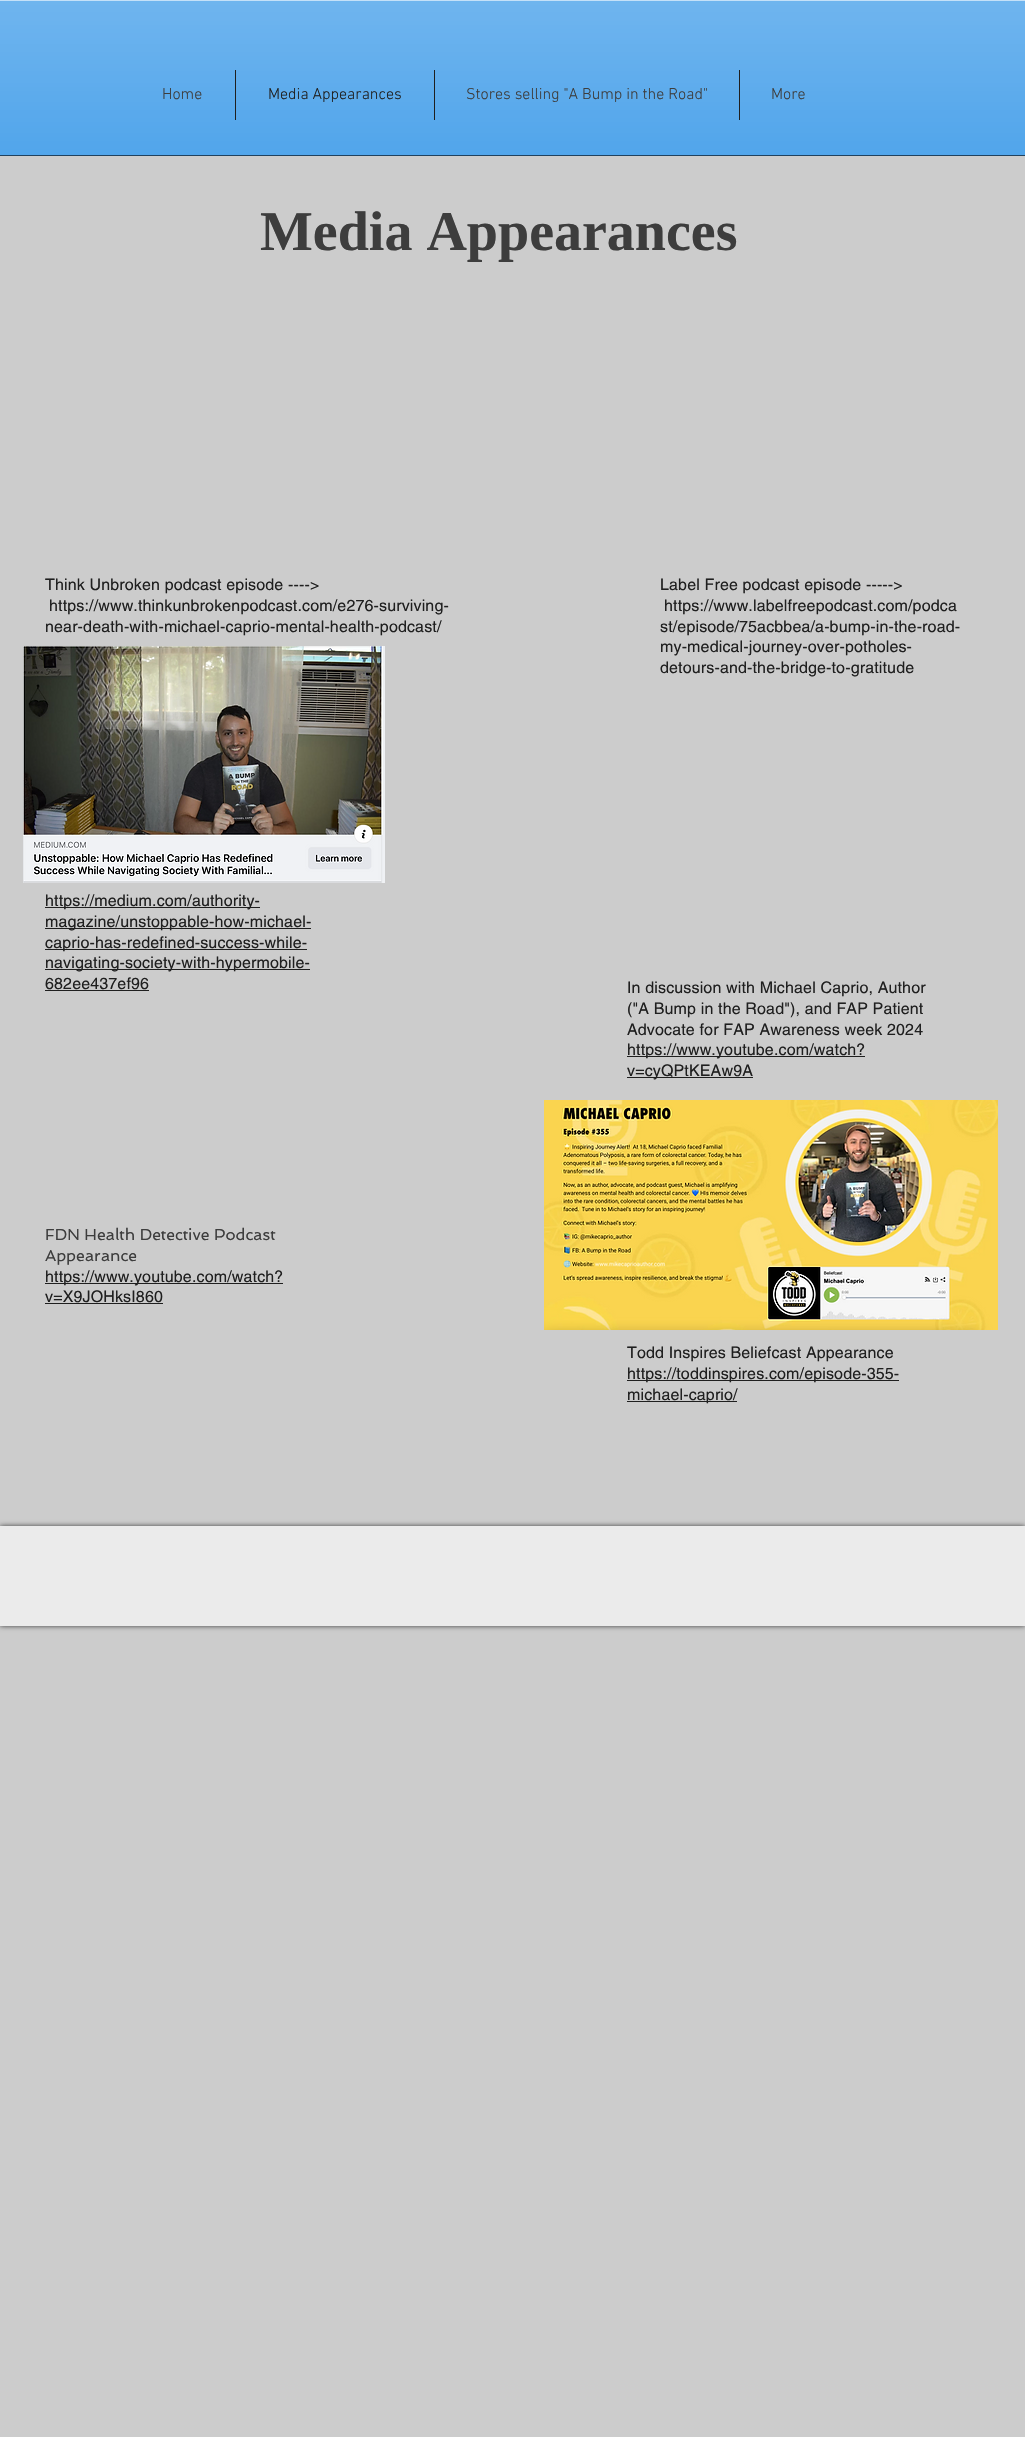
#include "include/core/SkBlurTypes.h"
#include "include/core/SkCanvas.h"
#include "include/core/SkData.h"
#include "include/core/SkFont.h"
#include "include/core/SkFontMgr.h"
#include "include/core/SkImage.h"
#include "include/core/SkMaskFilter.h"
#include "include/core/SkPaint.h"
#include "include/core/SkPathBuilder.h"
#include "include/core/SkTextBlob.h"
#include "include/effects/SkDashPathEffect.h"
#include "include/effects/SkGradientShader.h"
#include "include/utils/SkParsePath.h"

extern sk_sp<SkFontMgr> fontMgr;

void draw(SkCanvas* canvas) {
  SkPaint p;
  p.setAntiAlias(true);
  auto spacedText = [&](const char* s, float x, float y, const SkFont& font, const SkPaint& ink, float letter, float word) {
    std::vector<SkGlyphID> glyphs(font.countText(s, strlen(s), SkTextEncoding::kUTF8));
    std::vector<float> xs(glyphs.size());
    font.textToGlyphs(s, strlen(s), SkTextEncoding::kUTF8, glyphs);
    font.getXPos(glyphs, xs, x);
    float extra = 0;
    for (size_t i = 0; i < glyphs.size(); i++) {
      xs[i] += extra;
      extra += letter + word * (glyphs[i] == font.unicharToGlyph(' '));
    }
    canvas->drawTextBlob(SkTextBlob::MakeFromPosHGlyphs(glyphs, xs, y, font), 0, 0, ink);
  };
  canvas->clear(SkColorSetRGB(204, 204, 204));
  p.setColor(SkColorSetRGB(61, 155, 233));
  canvas->drawRect(SkRect::MakeLTRB(0, 1, 1025, 155), p);
  canvas->drawImageRect(SkImages::DeferredFromEncodedData(SkData::MakeFromFileName("images/1.png")), SkRect::MakeLTRB(0, 1, 1025, 155), SkSamplingOptions());
  p.setColor(SkColorSetRGB(32, 66, 94));
  canvas->drawRect(SkRect::MakeLTRB(0, 155, 1025, 156), p);
  p.setColor(SkColorSetRGB(197, 225, 248));
  canvas->drawRect(SkRect::MakeLTRB(0, 0, 1025, 1), p);
  p.setColor(SkColorSetRGB(31, 31, 31));
  canvas->drawRect(SkRect::MakeLTRB(235, 70, 236, 120), p);
  canvas->drawRect(SkRect::MakeLTRB(434, 70, 435, 120), p);
  canvas->drawRect(SkRect::MakeLTRB(739, 70, 740, 120), p);
  canvas->drawImageRect(SkImages::DeferredFromEncodedData(SkData::MakeFromFileName("images/2.png")), SkRect::MakeLTRB(23, 646, 385, 883), SkSamplingOptions());
  canvas->drawRect(SkRect::MakeLTRB(45, 907, 260, 908), p);
  canvas->drawRect(SkRect::MakeLTRB(45, 928, 311, 929), p);
  canvas->drawRect(SkRect::MakeLTRB(45, 949, 307, 950), p);
  canvas->drawRect(SkRect::MakeLTRB(45, 969, 310, 970), p);
  canvas->drawRect(SkRect::MakeLTRB(45, 990, 149, 991), p);
  canvas->drawRect(SkRect::MakeLTRB(627, 1056, 865, 1057), p);
  canvas->drawRect(SkRect::MakeLTRB(627, 1077, 753, 1078), p);
  canvas->drawRect(SkRect::MakeLTRB(45, 1283, 283, 1284), p);
  canvas->drawRect(SkRect::MakeLTRB(45, 1303, 163, 1304), p);
  canvas->drawImageRect(SkImages::DeferredFromEncodedData(SkData::MakeFromFileName("images/3.png")), SkRect::MakeLTRB(544, 1100, 998, 1330), SkSamplingOptions());
  canvas->drawRect(SkRect::MakeLTRB(627, 1380, 899, 1381), p);
  canvas->drawRect(SkRect::MakeLTRB(627, 1401, 737, 1402), p);
  p.setColor(SkColorSetARGB(179, 0, 0, 0));
  p.setMaskFilter(SkMaskFilter::MakeBlur(kNormal_SkBlurStyle, 2.5f));
  canvas->drawRect(SkRect::MakeLTRB(0, 1526, 1025, 1626), p);
  p.setMaskFilter(nullptr);
  p.setColor(SkColorSetRGB(235, 235, 235));
  canvas->drawRect(SkRect::MakeLTRB(0, 1526, 1025, 1626), p);
  SkFont font1(fontMgr->matchFamilyStyle("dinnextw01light", SkFontStyle(300, SkFontStyle::kNormal_Width, SkFontStyle::kUpright_Slant)), 16);
  font1.setSubpixel(true);
  p.setColor(SkColorSetRGB(61, 61, 61));
  canvas->drawString("Home", 162, 99, font1, p);
  p.setColor(SkColorSetRGB(31, 31, 31));
  canvas->drawString("Media Appearances", 268, 99, font1, p);
  p.setColor(SkColorSetRGB(61, 61, 61));
  canvas->drawString("Stores selling \"A Bump in the Road\"", 466, 99, font1, p);
  canvas->drawString("More", 771, 99, font1, p);
  SkFont font2(fontMgr->matchFamilyStyle("Liberation Serif", SkFontStyle::Bold()), 56);
  font2.setSubpixel(true);
  canvas->drawString("Media Appearances", 260, 250, font2, p);
  SkFont font3(fontMgr->matchFamilyStyle("helvetica", SkFontStyle::Normal()), 16);
  font3.setSubpixel(true);
  p.setColor(SkColorSetRGB(31, 31, 31));
  spacedText("Think Unbroken podcast episode ---->", 45, 590, font3, p, 0.15f, 0);
  spacedText("https://www.thinkunbrokenpodcast.com/e276-surviving-", 49, 611, font3, p, 0.15f, 0);
  spacedText("near-death-with-michael-caprio-mental-health-podcast/", 45, 632, font3, p, 0.15f, 0);
  spacedText("Label Free podcast episode ----->", 660, 590, font3, p, 0.15f, 0);
  spacedText("https://www.labelfreepodcast.com/podca", 664, 611, font3, p, 0.15f, 0);
  spacedText("st/episode/75acbbea/a-bump-in-the-road-", 660, 632, font3, p, 0.15f, 0);
  spacedText("my-medical-journey-over-potholes-", 660, 652, font3, p, 0.15f, 0);
  spacedText("detours-and-the-bridge-to-gratitude", 660, 673, font3, p, 0.15f, 0);
  spacedText("https://medium.com/authority-", 45, 906, font3, p, 0.15f, 0);
  spacedText("magazine/unstoppable-how-michael-", 45, 927, font3, p, 0.15f, 0);
  spacedText("caprio-has-redefined-success-while-", 45, 948, font3, p, 0.15f, 0);
  spacedText("navigating-society-with-hypermobile-", 45, 968, font3, p, 0.15f, 0);
  spacedText("682ee437ef96", 45, 989, font3, p, 0.15f, 0);
  spacedText("In discussion with Michael Caprio, Author", 627, 993, font3, p, 0.15f, 0);
  spacedText("(\"A Bump in the Road\"), and FAP Patient", 627, 1014, font3, p, 0.15f, 0);
  spacedText("Advocate for FAP Awareness week 2024", 627, 1035, font3, p, 0.15f, 0);
  spacedText("https://www.youtube.com/watch?", 627, 1055, font3, p, 0.15f, 0);
  spacedText("v=cyQPtKEAw9A", 627, 1076, font3, p, 0.15f, 0);
  SkFont font4(fontMgr->matchFamilyStyle("Spinnaker", SkFontStyle::Normal()), 16);
  font4.setSubpixel(true);
  p.setColor(SkColorSetRGB(61, 61, 61));
  canvas->drawString("FDN Health Detective Podcast", 45, 1240, font4, p);
  canvas->drawString("Appearance", 45, 1261, font4, p);
  p.setColor(SkColorSetRGB(31, 31, 31));
  spacedText("https://www.youtube.com/watch?", 45, 1282, font3, p, 0.15f, 0);
  spacedText("v=X9JOHksI860", 45, 1302, font3, p, 0.15f, 0);
  spacedText("Todd Inspires Beliefcast Appearance", 627, 1358, font3, p, 0.15f, 0);
  spacedText("https://toddinspires.com/episode-355-", 627, 1379, font3, p, 0.15f, 0);
  spacedText("michael-caprio/", 627, 1400, font3, p, 0.15f, 0);
}
